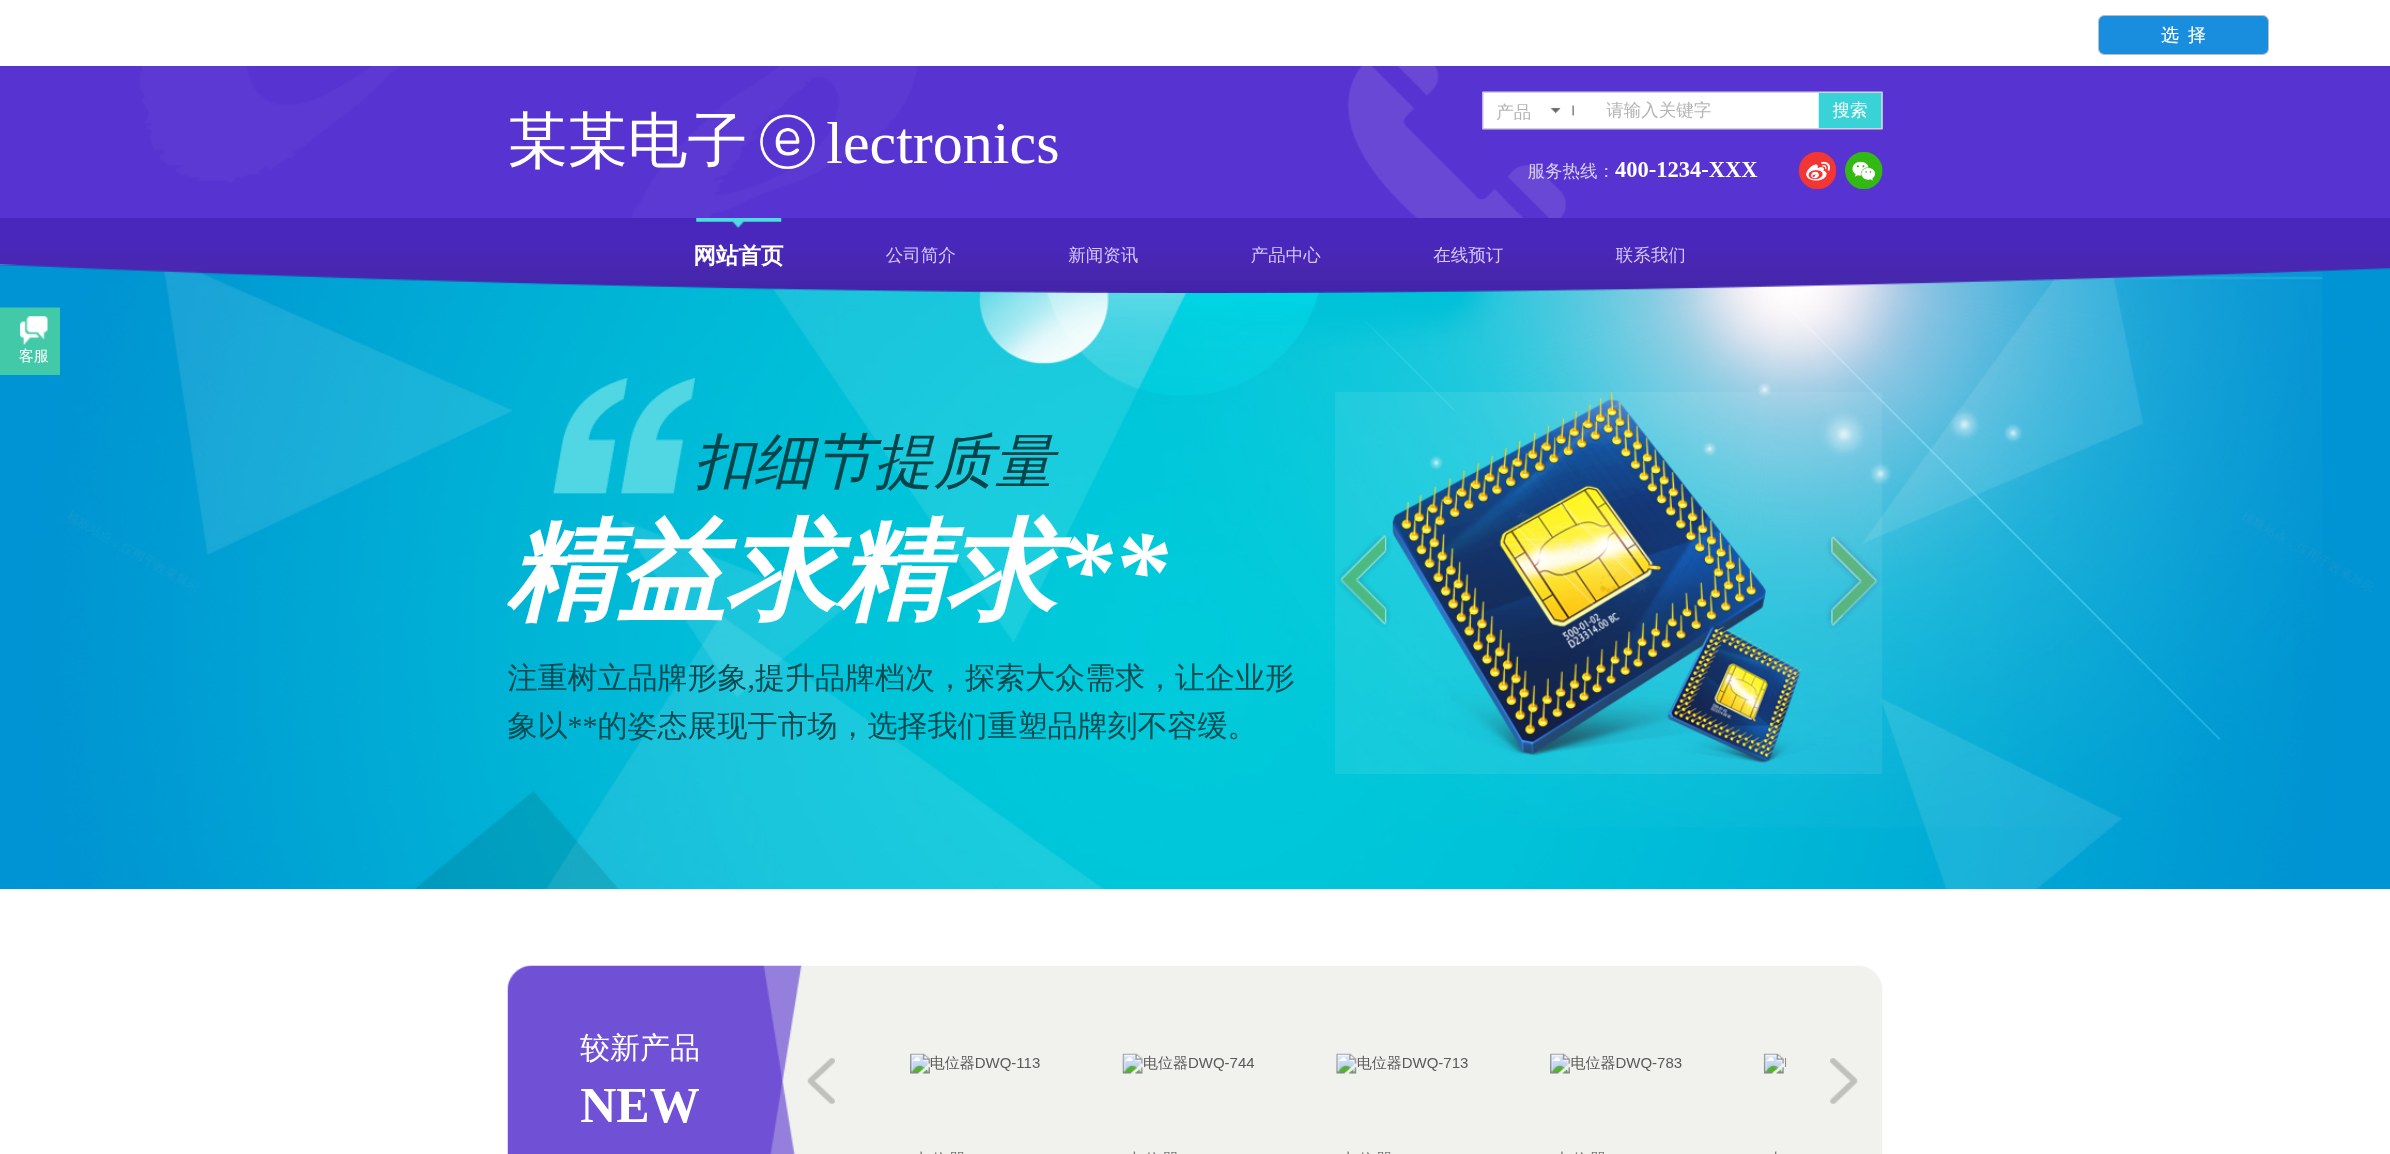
#include "include/core/SkBlurTypes.h"
#include "include/core/SkCanvas.h"
#include "include/core/SkData.h"
#include "include/core/SkFont.h"
#include "include/core/SkFontMgr.h"
#include "include/core/SkImage.h"
#include "include/core/SkMaskFilter.h"
#include "include/core/SkPaint.h"
#include "include/core/SkPathBuilder.h"
#include "include/core/SkTextBlob.h"
#include "include/effects/SkDashPathEffect.h"
#include "include/effects/SkGradientShader.h"
#include "include/utils/SkParsePath.h"

extern sk_sp<SkFontMgr> fontMgr;

void draw(SkCanvas* canvas) {
  SkPaint p;
  p.setAntiAlias(true);
  canvas->clear(SK_ColorWHITE);
  p.setStyle(SkPaint::kStroke_Style);
  p.setStrokeWidth(1);
  p.setColor(SkColorSetRGB(189, 189, 189));
  canvas->drawRoundRect(SkRect::MakeLTRB(2098.5f, 15.5f, 2268.5f, 54.5f), 5.5f, 5.5f, p);
  p.setStyle(SkPaint::kFill_Style);
  p.setColor(SkColorSetRGB(25, 142, 222));
  canvas->drawRoundRect(SkRect::MakeLTRB(2099, 16, 2268, 54), 5, 5, p);
  canvas->drawImageRect(SkImages::DeferredFromEncodedData(SkData::MakeFromFileName("images/1.png")), SkRect::MakeLTRB(0, 66, 2390, 1154), SkSamplingOptions());
  SkFont font1(fontMgr->matchFamilyStyle("WenQuanYi Zen Hei", SkFontStyle(500, SkFontStyle::kNormal_Width, SkFontStyle::kUpright_Slant)), 18);
  font1.setSubpixel(true);
  p.setColor(SK_ColorWHITE);
  canvas->drawString("选", 2161, 41, font1, p);
  canvas->drawString("择", 2188, 41, font1, p);
}
